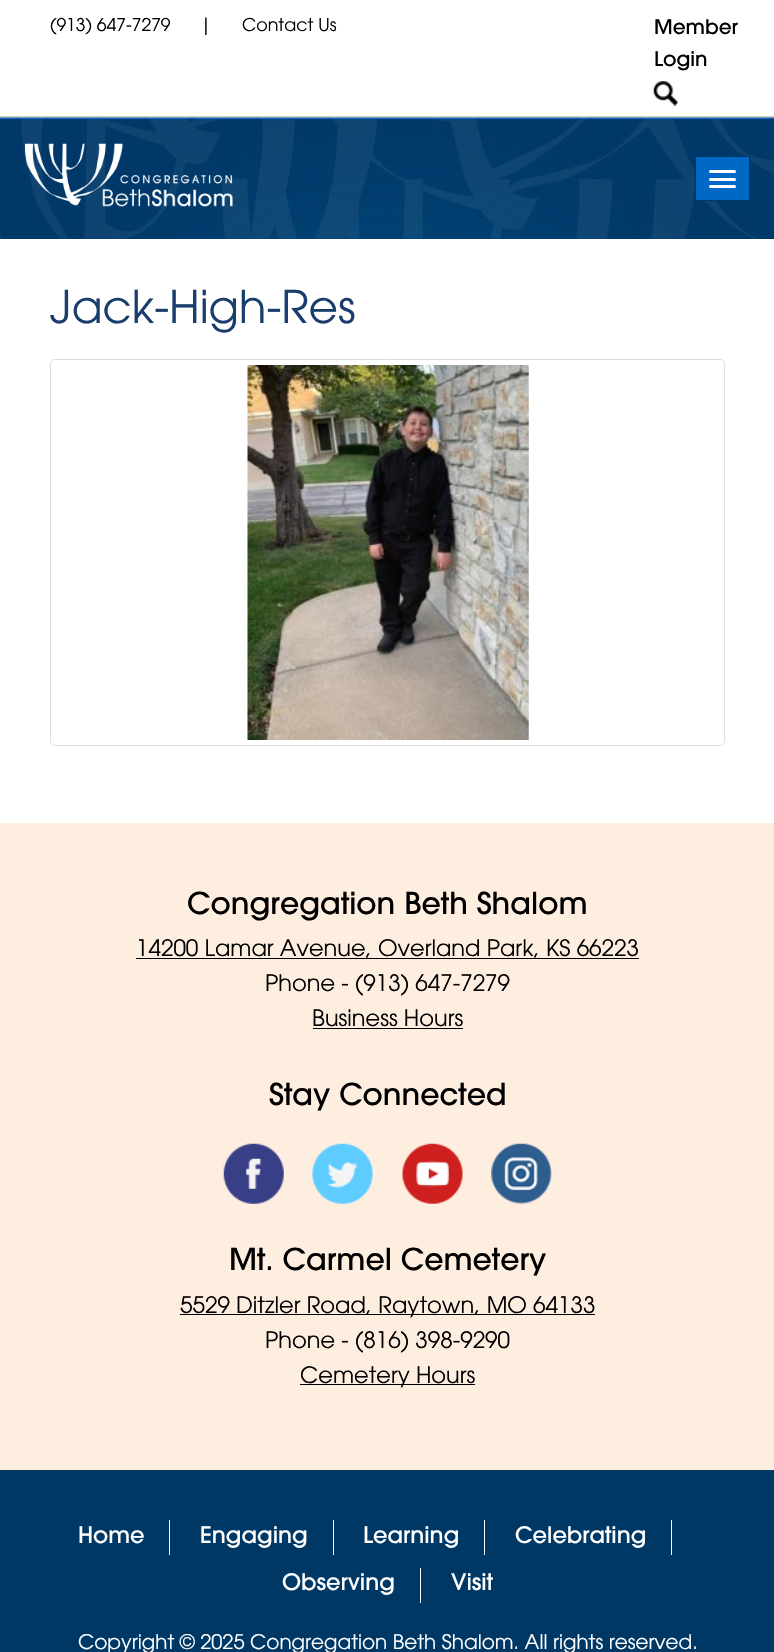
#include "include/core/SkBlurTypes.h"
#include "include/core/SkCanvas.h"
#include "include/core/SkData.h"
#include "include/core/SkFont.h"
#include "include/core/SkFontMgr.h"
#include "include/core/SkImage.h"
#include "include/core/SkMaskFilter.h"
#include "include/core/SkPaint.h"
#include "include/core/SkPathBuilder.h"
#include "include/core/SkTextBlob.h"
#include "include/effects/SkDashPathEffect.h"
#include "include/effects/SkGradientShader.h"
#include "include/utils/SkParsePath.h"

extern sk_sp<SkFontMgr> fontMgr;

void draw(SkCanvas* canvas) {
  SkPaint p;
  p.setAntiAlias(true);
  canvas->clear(SkColorSetRGB(0, 56, 101));
  p.setColor(SK_ColorWHITE);
  canvas->drawRect(SkRect::MakeLTRB(0, 0, 774, 118), p);
  p.setColor(SkColorSetRGB(204, 204, 204));
  canvas->drawRect(SkRect::MakeLTRB(0, 116, 774, 117), p);
  canvas->drawImageRect(SkImages::DeferredFromEncodedData(SkData::MakeFromFileName("images/1.png")), SkRect::MakeLTRB(653, 81, 678, 107), SkSamplingOptions());
  canvas->drawImageRect(SkImages::DeferredFromEncodedData(SkData::MakeFromFileName("images/2.png")), SkRect::MakeLTRB(0, 117, 774, 239), SkSamplingOptions());
  p.setColor(SkColorSetRGB(0, 105, 197));
  canvas->drawRect(SkRect::MakeLTRB(0, 118, 774, 119), p);
  canvas->drawImageRect(SkImages::DeferredFromEncodedData(SkData::MakeFromFileName("images/3.png")), SkRect::MakeLTRB(25, 143, 233, 207), SkSamplingOptions());
  canvas->drawRect(SkRect::MakeLTRB(695.5f, 156.5f, 749.5f, 200.5f), p);
  p.setStyle(SkPaint::kStroke_Style);
  p.setStrokeWidth(1);
  p.setColor(SkColorSetRGB(0, 56, 101));
  canvas->drawRect(SkRect::MakeLTRB(695.5f, 156.5f, 749.5f, 200.5f), p);
  p.setStyle(SkPaint::kFill_Style);
  p.setColor(SK_ColorWHITE);
  canvas->drawRoundRect(SkRect::MakeLTRB(709, 170, 736, 173), 1.5f, 1.5f, p);
  canvas->drawRoundRect(SkRect::MakeLTRB(709, 178, 736, 181), 1.5f, 1.5f, p);
  canvas->drawRoundRect(SkRect::MakeLTRB(709, 185, 736, 188), 1.5f, 1.5f, p);
  canvas->drawRect(SkRect::MakeLTRB(0, 239, 774, 823), p);
  p.setStyle(SkPaint::kStroke_Style);
  p.setColor(SkColorSetRGB(221, 221, 221));
  canvas->drawRoundRect(SkRect::MakeLTRB(50.5f, 359.5f, 724.5f, 745.5f), 4.5f, 4.5f, p);
  canvas->drawImageRect(SkImages::DeferredFromEncodedData(SkData::MakeFromFileName("images/4.png")), SkRect::MakeLTRB(247, 365, 529, 740), SkSamplingOptions());
  p.setStyle(SkPaint::kFill_Style);
  p.setColor(SkColorSetRGB(254, 238, 224));
  canvas->drawRect(SkRect::MakeLTRB(0, 823, 774, 1470), p);
  p.setColor(SK_ColorBLACK);
  canvas->drawRect(SkRect::MakeLTRB(136, 958, 639, 959), p);
  canvas->drawRect(SkRect::MakeLTRB(313, 1028, 463, 1029), p);
  canvas->drawImageRect(SkImages::DeferredFromEncodedData(SkData::MakeFromFileName("images/5.png")), SkRect::MakeLTRB(223, 1143, 284, 1204), SkSamplingOptions());
  canvas->drawImageRect(SkImages::DeferredFromEncodedData(SkData::MakeFromFileName("images/6.png")), SkRect::MakeLTRB(312, 1143, 373, 1204), SkSamplingOptions());
  canvas->drawImageRect(SkImages::DeferredFromEncodedData(SkData::MakeFromFileName("images/7.png")), SkRect::MakeLTRB(402, 1143, 463, 1204), SkSamplingOptions());
  canvas->drawImageRect(SkImages::DeferredFromEncodedData(SkData::MakeFromFileName("images/8.png")), SkRect::MakeLTRB(491, 1143, 552, 1204), SkSamplingOptions());
  canvas->drawRect(SkRect::MakeLTRB(180, 1314, 595, 1315), p);
  canvas->drawRect(SkRect::MakeLTRB(300, 1384, 475, 1385), p);
  p.setColor(SK_ColorWHITE);
  canvas->drawRect(SkRect::MakeLTRB(169, 1520, 170, 1555), p);
  canvas->drawRect(SkRect::MakeLTRB(333, 1520, 334, 1555), p);
  canvas->drawRect(SkRect::MakeLTRB(484, 1520, 485, 1555), p);
  canvas->drawRect(SkRect::MakeLTRB(671, 1520, 672, 1555), p);
  canvas->drawRect(SkRect::MakeLTRB(420, 1568, 421, 1603), p);
  SkFont font1(fontMgr->matchFamilyStyle("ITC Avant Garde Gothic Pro", SkFontStyle(300, SkFontStyle::kNormal_Width, SkFontStyle::kUpright_Slant)), 17.5f);
  font1.setSubpixel(true);
  p.setColor(SK_ColorBLACK);
  canvas->drawString("(913) 647-7279", 50, 31, font1, p);
  canvas->drawString("|", 200, 31, font1, p);
  canvas->drawString("Contact Us", 242, 31, font1, p);
  SkFont font2(fontMgr->matchFamilyStyle("ITC Avant Garde Gothic Pro", SkFontStyle(500, SkFontStyle::kNormal_Width, SkFontStyle::kUpright_Slant)), 20);
  font2.setSubpixel(true);
  canvas->drawString("Member", 654, 34, font2, p);
  canvas->drawString("Login", 654, 66, font2, p);
  SkFont font3(fontMgr->matchFamilyStyle("ITC Avant Garde Gothic Pro", SkFontStyle(300, SkFontStyle::kNormal_Width, SkFontStyle::kUpright_Slant)), 45);
  font3.setSubpixel(true);
  p.setColor(SkColorSetRGB(25, 62, 109));
  canvas->drawString("Jack-High-Res", 50, 323, font3, p);
  SkFont font4(fontMgr->matchFamilyStyle("ITC Avant Garde Gothic Pro", SkFontStyle(500, SkFontStyle::kNormal_Width, SkFontStyle::kUpright_Slant)), 30);
  font4.setSubpixel(true);
  p.setColor(SK_ColorBLACK);
  canvas->drawString("Congregation Beth Shalom", 187, 914, font4, p);
  SkFont font5(fontMgr->matchFamilyStyle("ITC Avant Garde Gothic Pro", SkFontStyle(300, SkFontStyle::kNormal_Width, SkFontStyle::kUpright_Slant)), 22.5f);
  font5.setSubpixel(true);
  canvas->drawString("14200 Lamar Avenue, Overland Park, KS 66223", 136, 956, font5, p);
  canvas->drawString("Phone - (913) 647-7279", 265, 991, font5, p);
  canvas->drawString("Business Hours", 312, 1026, font5, p);
  canvas->drawString("Stay Connected", 269, 1105, font4, p);
  canvas->drawString("Mt. Carmel Cemetery", 229, 1270, font4, p);
  canvas->drawString("5529 Ditzler Road, Raytown, MO 64133", 180, 1313, font5, p);
  canvas->drawString("Phone - (816) 398-9290", 265, 1348, font5, p);
  canvas->drawString("Cemetery Hours", 300, 1383, font5, p);
  SkFont font6(fontMgr->matchFamilyStyle("ITC Avant Garde Gothic Pro", SkFontStyle(500, SkFontStyle::kNormal_Width, SkFontStyle::kUpright_Slant)), 22.5f);
  font6.setSubpixel(true);
  p.setColor(SK_ColorWHITE);
  canvas->drawString("Home", 78, 1543, font6, p);
  canvas->drawString("Engaging", 200, 1543, font6, p);
  canvas->drawString("Learning", 363, 1543, font6, p);
  canvas->drawString("Celebrating", 515, 1543, font6, p);
  canvas->drawString("Observing", 282, 1590, font6, p);
  canvas->drawString("Visit", 451, 1590, font6, p);
  SkFont font7(fontMgr->matchFamilyStyle("ITC Avant Garde Gothic Pro", SkFontStyle(300, SkFontStyle::kNormal_Width, SkFontStyle::kUpright_Slant)), 20);
  font7.setSubpixel(true);
  canvas->drawString("Copyright © 2025 Congregation Beth Shalom. All rights reserved.", 78, 1649, font7, p);
}
